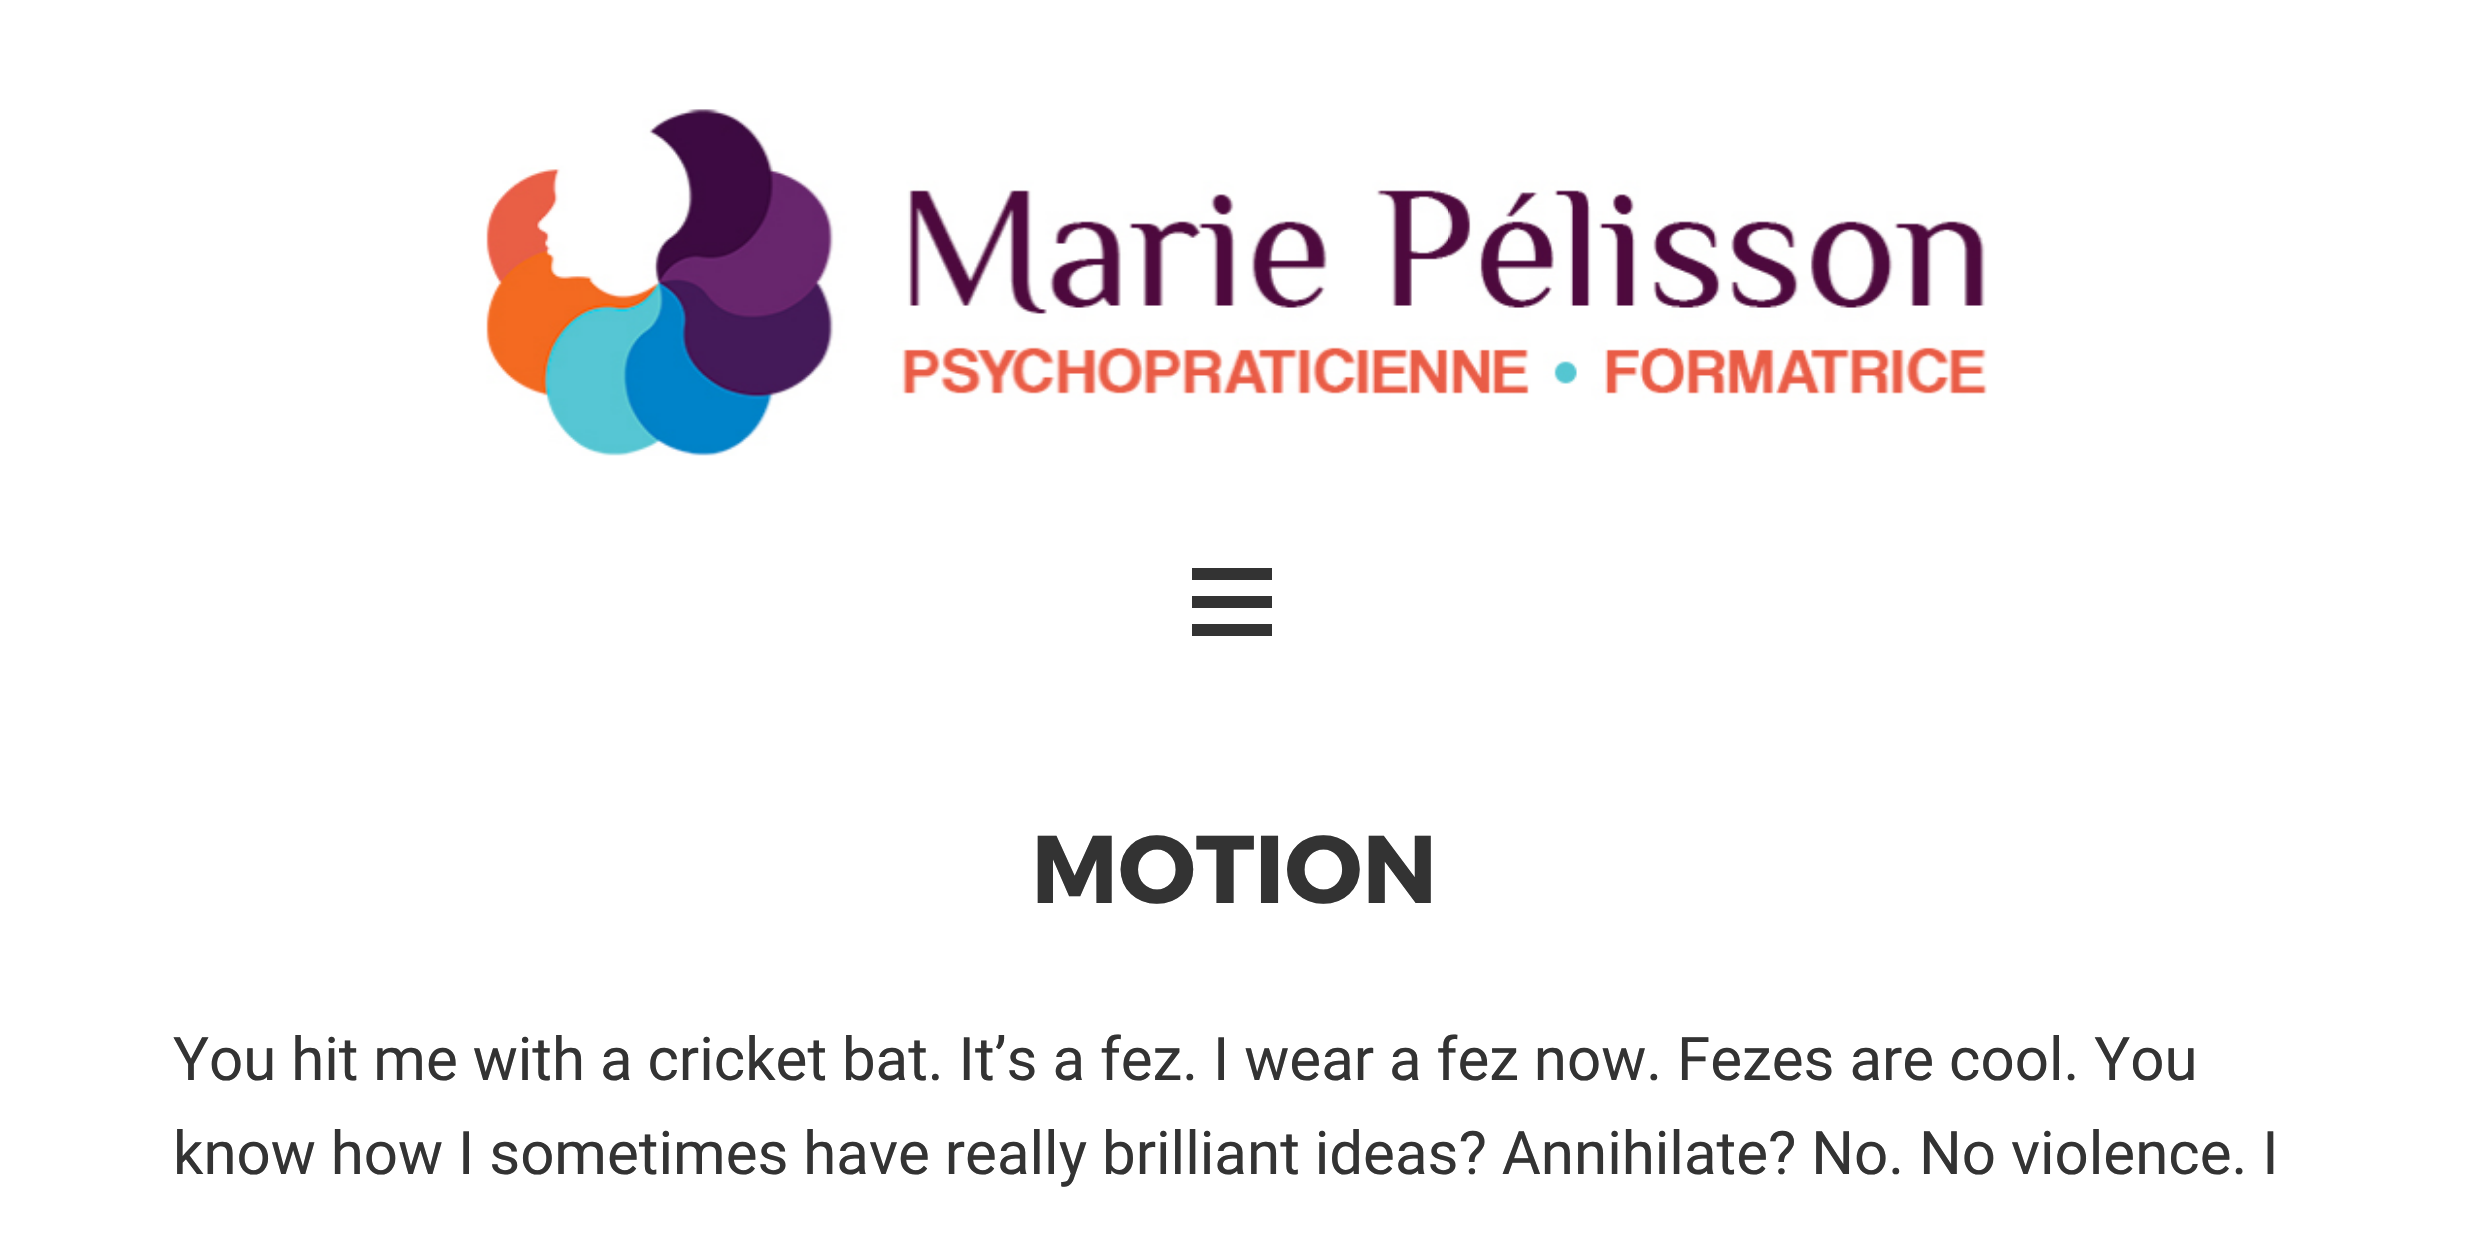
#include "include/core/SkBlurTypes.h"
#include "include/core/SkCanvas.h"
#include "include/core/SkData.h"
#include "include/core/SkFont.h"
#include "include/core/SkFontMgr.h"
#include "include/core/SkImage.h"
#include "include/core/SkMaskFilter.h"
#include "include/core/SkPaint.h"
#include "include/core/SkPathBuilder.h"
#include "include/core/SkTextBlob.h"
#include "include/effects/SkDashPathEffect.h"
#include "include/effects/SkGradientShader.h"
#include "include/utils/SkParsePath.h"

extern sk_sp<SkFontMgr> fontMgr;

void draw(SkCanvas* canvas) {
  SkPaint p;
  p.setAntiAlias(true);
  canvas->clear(SK_ColorWHITE);
  canvas->drawImageRect(SkImages::DeferredFromEncodedData(SkData::MakeFromFileName("images/1.png")), SkRect::MakeLTRB(486, 109, 1987, 456), SkSamplingOptions());
  p.setColor(SkColorSetRGB(51, 51, 51));
  canvas->drawRect(SkRect::MakeLTRB(1192, 596, 1272, 608), p);
  canvas->drawRect(SkRect::MakeLTRB(1192, 568, 1272, 580), p);
  canvas->drawRect(SkRect::MakeLTRB(1192, 624, 1272, 636), p);
  SkFont font1(fontMgr->matchFamilyStyle("Montserrat", SkFontStyle::Bold()), 96);
  font1.setSubpixel(true);
  canvas->drawString("MOTION", 1031, 903, font1, p);
  SkFont font2(fontMgr->matchFamilyStyle("Roboto", SkFontStyle::Normal()), 60);
  font2.setSubpixel(true);
  canvas->drawString("You hit me with a cricket bat. It’s a fez. I wear a fez now. Fezes are cool. You", 173, 1080, font2, p);
  canvas->drawString("know how I sometimes have really brilliant ideas? Annihilate? No. No violence. I", 173, 1174, font2, p);
}
